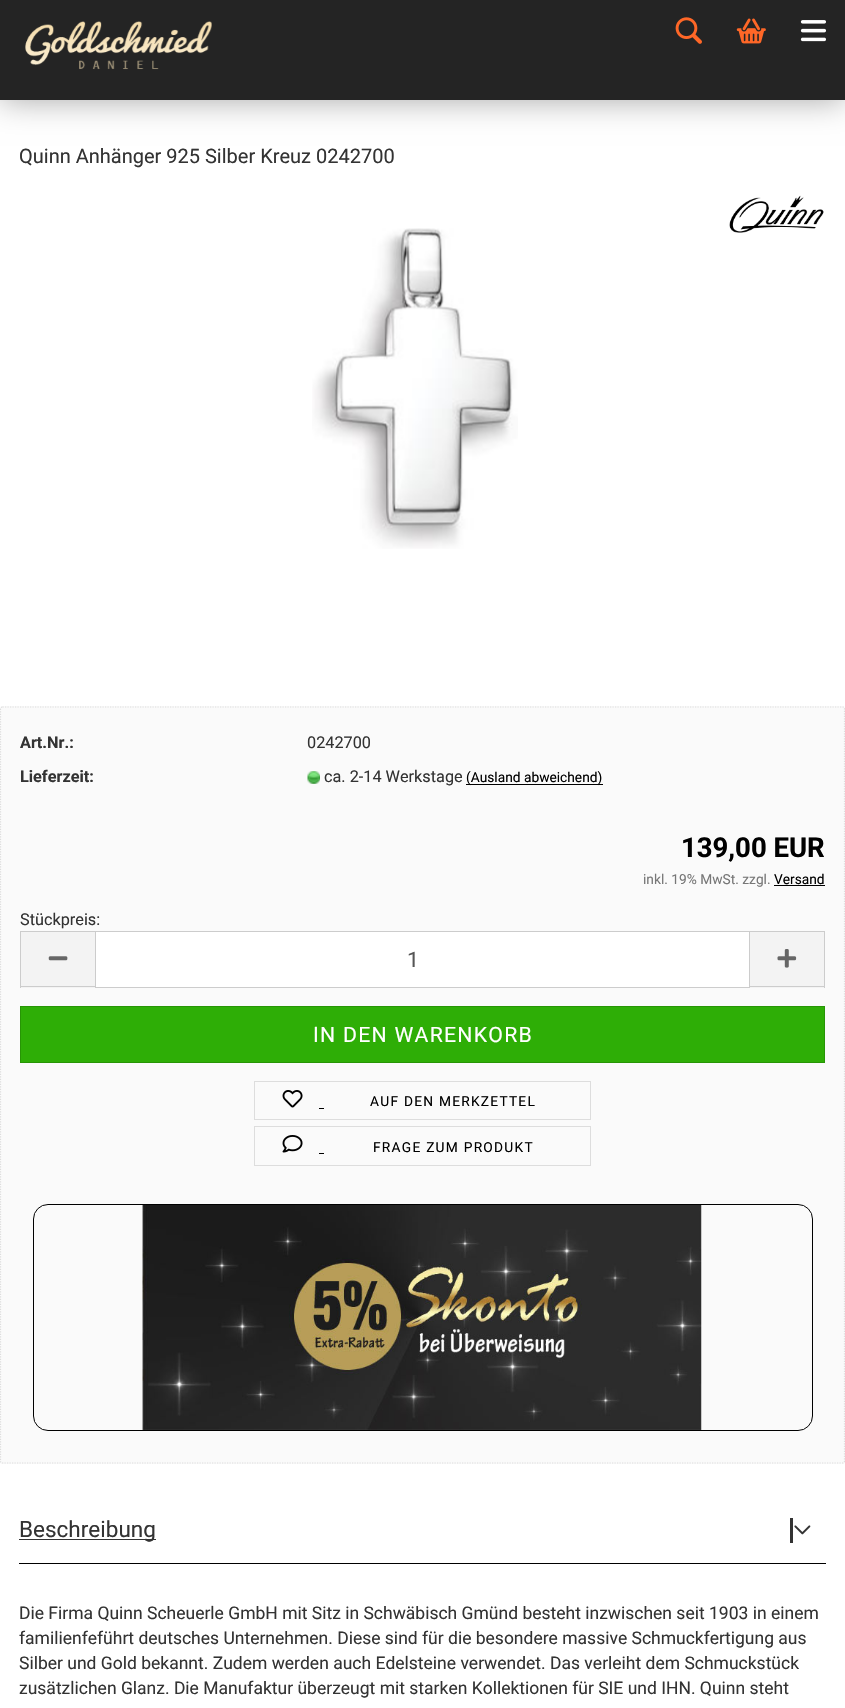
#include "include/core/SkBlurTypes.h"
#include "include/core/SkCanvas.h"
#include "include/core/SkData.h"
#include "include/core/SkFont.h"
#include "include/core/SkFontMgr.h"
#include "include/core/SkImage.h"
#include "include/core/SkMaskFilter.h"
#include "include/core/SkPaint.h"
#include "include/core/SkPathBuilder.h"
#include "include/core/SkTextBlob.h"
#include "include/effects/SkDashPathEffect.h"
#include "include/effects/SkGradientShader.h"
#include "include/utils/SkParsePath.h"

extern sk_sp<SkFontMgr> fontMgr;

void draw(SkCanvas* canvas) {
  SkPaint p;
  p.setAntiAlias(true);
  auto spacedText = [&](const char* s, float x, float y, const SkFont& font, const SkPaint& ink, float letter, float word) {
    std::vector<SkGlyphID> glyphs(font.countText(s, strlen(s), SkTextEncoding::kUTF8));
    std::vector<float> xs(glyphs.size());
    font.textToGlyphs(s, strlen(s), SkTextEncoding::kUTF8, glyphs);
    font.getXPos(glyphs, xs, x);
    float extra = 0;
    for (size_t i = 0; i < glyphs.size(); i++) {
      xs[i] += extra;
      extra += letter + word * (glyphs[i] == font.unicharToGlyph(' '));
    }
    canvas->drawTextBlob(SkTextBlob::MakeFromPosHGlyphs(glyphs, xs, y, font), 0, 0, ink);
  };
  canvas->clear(SK_ColorWHITE);
  p.setColor(SkColorSetARGB(89, 0, 0, 0));
  p.setMaskFilter(SkMaskFilter::MakeBlur(kNormal_SkBlurStyle, 15.5f));
  canvas->drawRect(SkRect::MakeLTRB(0, 0, 845, 100), p);
  p.setMaskFilter(nullptr);
  p.setColor(SkColorSetRGB(36, 36, 36));
  canvas->drawRect(SkRect::MakeLTRB(0, 0, 845, 100), p);
  canvas->drawImageRect(SkImages::DeferredFromEncodedData(SkData::MakeFromFileName("images/1.png")), SkRect::MakeLTRB(25, 21, 212, 70), SkSamplingOptions());
  canvas->drawImageRect(SkImages::DeferredFromEncodedData(SkData::MakeFromFileName("images/2.png")), SkRect::MakeLTRB(675, 17, 702, 44), SkSamplingOptions());
  canvas->drawImageRect(SkImages::DeferredFromEncodedData(SkData::MakeFromFileName("images/3.png")), SkRect::MakeLTRB(736, 18, 766, 44), SkSamplingOptions());
  canvas->drawImageRect(SkImages::DeferredFromEncodedData(SkData::MakeFromFileName("images/4.png")), SkRect::MakeLTRB(800, 20, 826, 42), SkSamplingOptions());
  canvas->drawImageRect(SkImages::DeferredFromEncodedData(SkData::MakeFromFileName("images/5.png")), SkRect::MakeLTRB(729, 195, 824, 233), SkSamplingOptions());
  canvas->drawImageRect(SkImages::DeferredFromEncodedData(SkData::MakeFromFileName("images/6.png")), SkRect::MakeLTRB(312, 228, 518, 549), SkSamplingOptions());
  p.setColor(SkColorSetRGB(250, 250, 250));
  canvas->drawRoundRect(SkRect::MakeLTRB(0, 706, 845, 1464), 2.5f, 2.5f, p);
  p.setStyle(SkPaint::kStroke_Style);
  p.setStrokeWidth(1.2f);
  p.setColor(SkColorSetRGB(221, 221, 221));
  p.setPathEffect(SkDashPathEffect::Make({{1.25f, 1.25f}}, 0));
  canvas->drawPath(SkPathBuilder().moveTo(2.5f, 707).lineTo(842.5f, 707).cubicTo(843.5f, 707, 844.5f, 707.5f, 844.5f, 709).lineTo(844.5f, 1461).cubicTo(844.5f, 1462.5f, 843.5f, 1463, 842.5f, 1463).lineTo(2.5f, 1463).cubicTo(1.5f, 1463, 0.5f, 1462.5f, 0.5f, 1461).lineTo(0.5f, 709).cubicTo(0.5f, 707.5f, 1.5f, 707, 2.5f, 707).close().detach(), p);
  p.setPathEffect(nullptr);
  canvas->drawImageRect(SkImages::DeferredFromEncodedData(SkData::MakeFromFileName("images/7.png")), SkRect::MakeLTRB(307, 771, 320, 784), SkSamplingOptions());
  p.setStyle(SkPaint::kFill_Style);
  p.setColor(SK_ColorBLACK);
  canvas->drawRect(SkRect::MakeLTRB(466, 784, 603, 785), p);
  canvas->drawRect(SkRect::MakeLTRB(774, 885, 825, 886), p);
  p.setColor(SkColorSetRGB(243, 243, 243));
  canvas->drawRect(SkRect::MakeLTRB(21, 932, 95, 988), p);
  p.setColor(SkColorSetRGB(204, 204, 204));
  canvas->drawRect(SkRect::MakeLTRB(20, 931, 95, 932), p);
  canvas->drawRect(SkRect::MakeLTRB(20, 986, 95, 987), p);
  canvas->drawRect(SkRect::MakeLTRB(20, 931, 21, 988), p);
  canvas->drawImageRect(SkImages::DeferredFromEncodedData(SkData::MakeFromFileName("images/8.png")), SkRect::MakeLTRB(48, 956, 68, 961), SkSamplingOptions());
  p.setColor(SK_ColorWHITE);
  canvas->drawRect(SkRect::MakeLTRB(95.5f, 931.5f, 749.5f, 987.5f), p);
  p.setStyle(SkPaint::kStroke_Style);
  p.setStrokeWidth(1);
  p.setColor(SkColorSetRGB(204, 204, 204));
  canvas->drawRect(SkRect::MakeLTRB(95.5f, 931.5f, 749.5f, 987.5f), p);
  p.setStyle(SkPaint::kFill_Style);
  p.setColor(SkColorSetRGB(243, 243, 243));
  canvas->drawRect(SkRect::MakeLTRB(750, 932, 824, 988), p);
  p.setColor(SkColorSetRGB(204, 204, 204));
  canvas->drawRect(SkRect::MakeLTRB(750, 931, 825, 932), p);
  canvas->drawRect(SkRect::MakeLTRB(824, 931, 825, 988), p);
  canvas->drawRect(SkRect::MakeLTRB(750, 986, 825, 987), p);
  canvas->drawImageRect(SkImages::DeferredFromEncodedData(SkData::MakeFromFileName("images/9.png")), SkRect::MakeLTRB(777, 949, 797, 968), SkSamplingOptions());
  p.setColor(SkColorSetRGB(46, 174, 6));
  canvas->drawRect(SkRect::MakeLTRB(20.5f, 1006.5f, 824.5f, 1062.5f), p);
  p.setStyle(SkPaint::kStroke_Style);
  p.setColor(SkColorSetRGB(39, 149, 5));
  canvas->drawRect(SkRect::MakeLTRB(20.5f, 1006.5f, 824.5f, 1062.5f), p);
  p.setColor(SkColorSetRGB(221, 221, 221));
  canvas->drawRect(SkRect::MakeLTRB(254.5f, 1081.5f, 590.5f, 1119.5f), p);
  canvas->drawImageRect(SkImages::DeferredFromEncodedData(SkData::MakeFromFileName("images/10.png")), SkRect::MakeLTRB(282, 1090, 303, 1108), SkSamplingOptions());
  p.setStyle(SkPaint::kFill_Style);
  p.setColor(SK_ColorBLACK);
  canvas->drawRect(SkRect::MakeLTRB(319, 1108, 324, 1109), p);
  p.setStyle(SkPaint::kStroke_Style);
  p.setColor(SkColorSetRGB(221, 221, 221));
  canvas->drawRect(SkRect::MakeLTRB(254.5f, 1126.5f, 590.5f, 1165.5f), p);
  canvas->drawImageRect(SkImages::DeferredFromEncodedData(SkData::MakeFromFileName("images/11.png")), SkRect::MakeLTRB(282, 1135, 303, 1153), SkSamplingOptions());
  p.setStyle(SkPaint::kFill_Style);
  p.setColor(SK_ColorBLACK);
  canvas->drawRect(SkRect::MakeLTRB(319, 1153, 324, 1154), p);
  canvas->drawImageRect(SkImages::DeferredFromEncodedData(SkData::MakeFromFileName("images/12.png")), SkRect::MakeLTRB(142, 1205, 702, 1430), SkSamplingOptions());
  p.setStyle(SkPaint::kStroke_Style);
  canvas->drawRoundRect(SkRect::MakeLTRB(33.5f, 1204.5f, 812.5f, 1430.5f), 14.5f, 14.5f, p);
  p.setStyle(SkPaint::kFill_Style);
  canvas->drawRect(SkRect::MakeLTRB(19, 1563, 826, 1564), p);
  p.setColor(SkColorSetRGB(51, 51, 51));
  canvas->drawRect(SkRect::MakeLTRB(19, 1539, 156, 1540), p);
  canvas->drawRect(SkRect::MakeLTRB(790, 1518, 793, 1543), p);
  canvas->drawImageRect(SkImages::DeferredFromEncodedData(SkData::MakeFromFileName("images/13.png")), SkRect::MakeLTRB(794, 1525, 811, 1535), SkSamplingOptions());
  SkFont font1(fontMgr->matchFamilyStyle("Roboto", SkFontStyle::Normal()), 20);
  font1.setSubpixel(true);
  canvas->drawString("Quinn Anhänger 925 Silber Kreuz 0242700", 19, 163, font1, p);
  SkFont font2(fontMgr->matchFamilyStyle("Roboto", SkFontStyle::Bold()), 16.25f);
  font2.setSubpixel(true);
  canvas->drawString("Art.Nr.:", 20, 748, font2, p);
  SkFont font3(fontMgr->matchFamilyStyle("Roboto", SkFontStyle::Normal()), 16.25f);
  font3.setSubpixel(true);
  canvas->drawString("0242700", 307, 748, font3, p);
  canvas->drawString("Lieferzeit:", 20, 782, font2, p);
  canvas->drawString("ca. 2-14 Werkstage", 324, 782, font3, p);
  SkFont font4(fontMgr->matchFamilyStyle("Roboto", SkFontStyle::Normal()), 13.75f);
  font4.setSubpixel(true);
  p.setColor(SK_ColorBLACK);
  canvas->drawString("(Ausland abweichend)", 466, 782, font4, p);
  SkFont font5(fontMgr->matchFamilyStyle("Roboto", SkFontStyle::Bold()), 27.5f);
  font5.setSubpixel(true);
  canvas->drawString("139,00 EUR", 681, 857, font5, p);
  p.setColor(SkColorSetRGB(119, 119, 119));
  canvas->drawString("inkl. 19% MwSt. zzgl.", 643, 884, font4, p);
  p.setColor(SK_ColorBLACK);
  canvas->drawString("Versand", 774, 884, font4, p);
  p.setColor(SkColorSetRGB(51, 51, 51));
  canvas->drawString("Stückpreis:", 20, 925, font3, p);
  SkFont font6(fontMgr->matchFamilyStyle("Roboto", SkFontStyle::Normal()), 21.25f);
  font6.setSubpixel(true);
  p.setColor(SkColorSetRGB(85, 85, 85));
  canvas->drawString("1", 407, 967, font6, p);
  p.setColor(SK_ColorWHITE);
  spacedText("IN DEN WARENKORB", 313, 1042, font6, p, 1.25f, 0);
  p.setColor(SK_ColorBLACK);
  spacedText("AUF DEN MERKZETTEL", 370, 1106, font4, p, 1.25f, 0);
  spacedText("FRAGE ZUM PRODUKT", 373, 1152, font4, p, 1.25f, 0);
  SkFont font7(fontMgr->matchFamilyStyle("Roboto", SkFontStyle::Normal()), 22.5f);
  font7.setSubpixel(true);
  p.setColor(SkColorSetRGB(51, 51, 51));
  canvas->drawString("Beschreibung", 19, 1537, font7, p);
  SkFont font8(fontMgr->matchFamilyStyle("Roboto", SkFontStyle::Normal()), 17.5f);
  font8.setSubpixel(true);
  canvas->drawString("Die Firma Quinn Scheuerle GmbH mit Sitz in Schwäbisch Gmünd besteht inzwischen seit 1903 in einem", 19, 1619, font8, p);
  canvas->drawString("familienfeführt deutsches Unternehmen. Diese sind für die besondere massive Schmuckfertigung aus", 19, 1644, font8, p);
  canvas->drawString("Silber und Gold bekannt. Zudem werden auch Edelsteine verwendet. Das verleiht dem Schmuckstück", 19, 1669, font8, p);
  canvas->drawString("zusätzlichen Glanz. Die Manufaktur überzeugt mit starken Kollektionen für SIE und IHN. Quinn steht", 19, 1694, font8, p);
}
